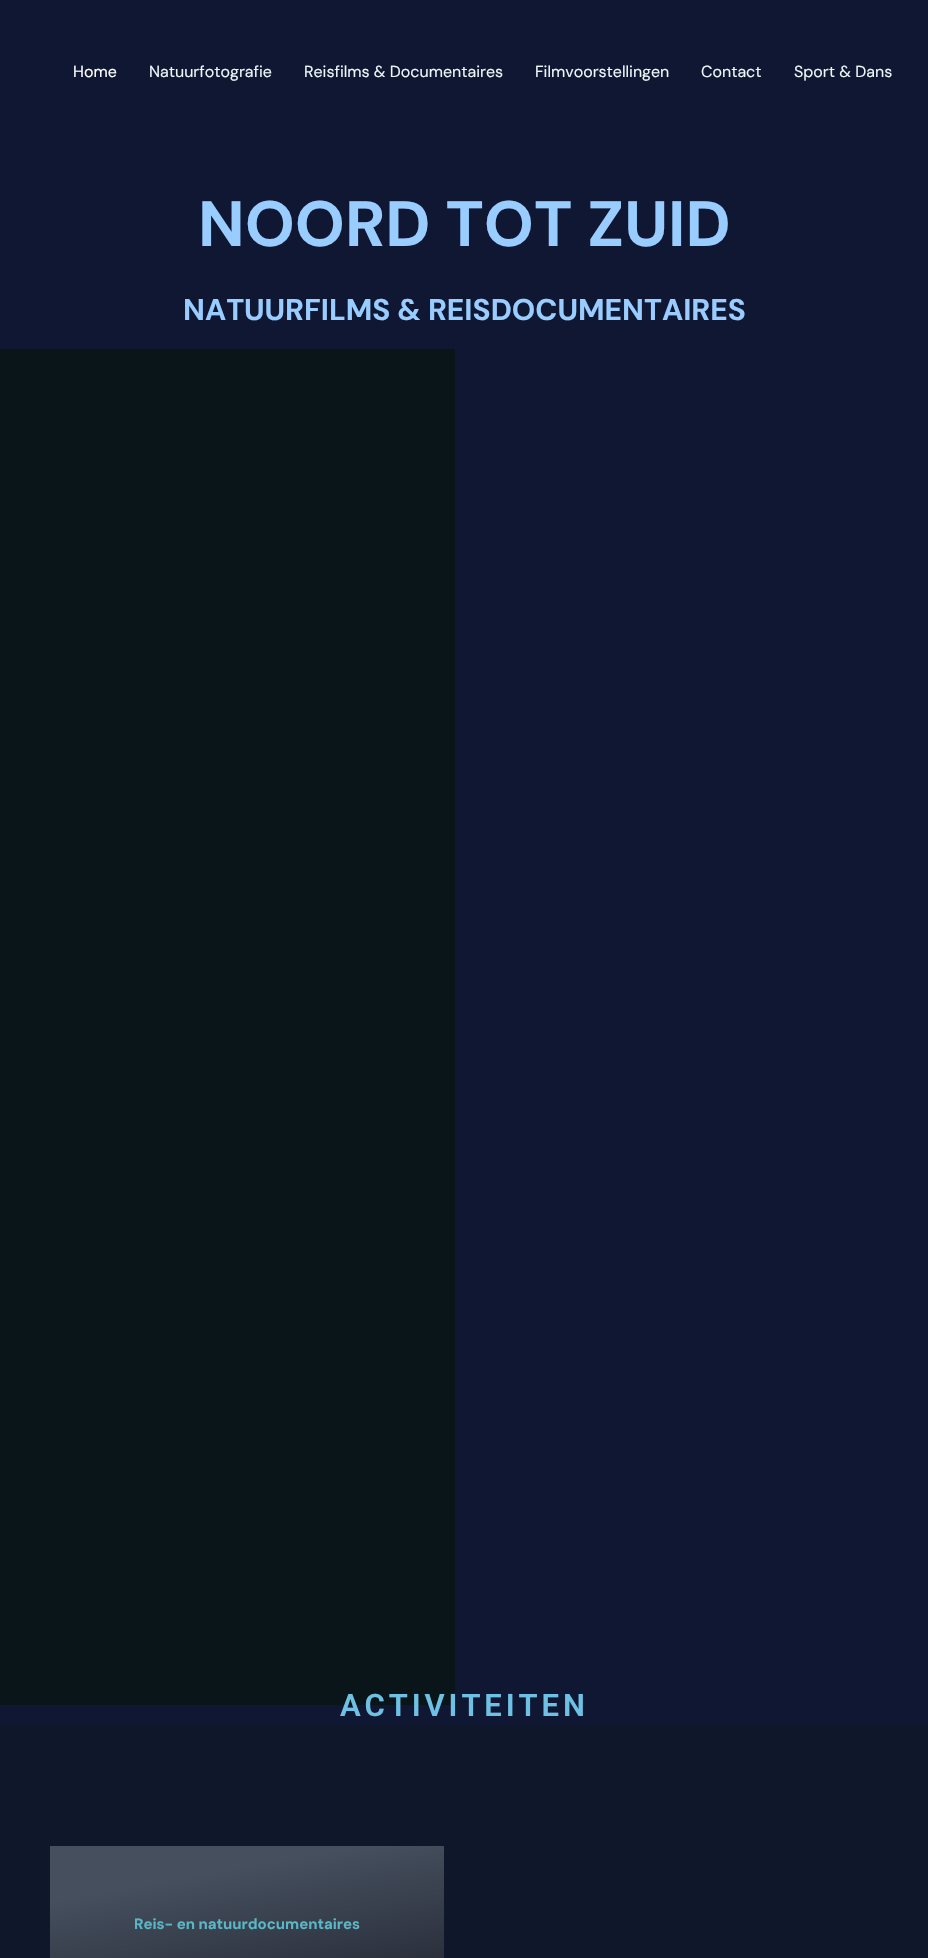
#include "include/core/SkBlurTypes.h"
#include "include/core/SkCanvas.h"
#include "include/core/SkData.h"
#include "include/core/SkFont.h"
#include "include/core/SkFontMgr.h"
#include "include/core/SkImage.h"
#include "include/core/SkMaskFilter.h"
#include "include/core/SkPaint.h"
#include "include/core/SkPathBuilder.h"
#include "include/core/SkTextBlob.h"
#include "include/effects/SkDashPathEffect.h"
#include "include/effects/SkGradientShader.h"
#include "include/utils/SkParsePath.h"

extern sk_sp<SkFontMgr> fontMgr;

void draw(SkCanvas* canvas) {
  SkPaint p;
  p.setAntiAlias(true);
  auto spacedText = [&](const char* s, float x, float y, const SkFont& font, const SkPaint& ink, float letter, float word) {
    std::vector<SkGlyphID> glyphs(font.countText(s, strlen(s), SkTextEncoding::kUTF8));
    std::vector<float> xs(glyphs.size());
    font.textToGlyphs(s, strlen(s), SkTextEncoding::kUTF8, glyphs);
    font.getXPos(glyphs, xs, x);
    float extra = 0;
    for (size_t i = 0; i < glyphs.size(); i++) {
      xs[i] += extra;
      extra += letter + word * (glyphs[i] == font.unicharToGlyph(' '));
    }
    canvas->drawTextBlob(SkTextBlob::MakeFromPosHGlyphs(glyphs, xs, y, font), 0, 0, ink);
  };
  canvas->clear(SkColorSetRGB(16, 23, 51));
  p.setColor(SkColorSetRGB(10, 21, 25));
  canvas->drawRect(SkRect::MakeLTRB(0, 349, 455, 1705), p);
  p.setColor(SkColorSetRGB(15, 23, 42));
  canvas->drawRect(SkRect::MakeLTRB(0, 1726, 928, 1958), p);
  {
    const SkColor colors[] = {SkColorSetRGB(24, 24, 35), SkColorSetRGB(69, 79, 94)};
    const float stops[] = {0, 0.8f};
    const SkPoint ends[] = {{271, 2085}, {223, 1815}};
    p.setShader(SkGradientShader::MakeLinear(ends, colors, stops, 2, SkTileMode::kClamp));
    p.setAlpha(255);
  }
  canvas->drawRect(SkRect::MakeLTRB(50, 1846, 444, 1958), p);
  SkFont font1(fontMgr->matchFamilyStyle("DM Sans", SkFontStyle::Normal()), 16);
  font1.setSubpixel(true);
  p.setShader(nullptr);
  p.setColor(SK_ColorWHITE);
  canvas->drawString("Home", 73, 77, font1, p);
  p.setColor(SkColorSetRGB(233, 248, 249));
  canvas->drawString("Natuurfotografie", 149, 77, font1, p);
  canvas->drawString("Reisfilms & Documentaires", 304, 77, font1, p);
  canvas->drawString("Filmvoorstellingen", 535, 77, font1, p);
  canvas->drawString("Contact", 701, 77, font1, p);
  canvas->drawString("Sport & Dans", 794, 77, font1, p);
  SkFont font2(fontMgr->matchFamilyStyle("DM Sans", SkFontStyle::Bold()), 64);
  font2.setSubpixel(true);
  p.setColor(SkColorSetRGB(153, 204, 255));
  canvas->drawString("NOORD TOT ZUID", 198, 246, font2, p);
  SkFont font3(fontMgr->matchFamilyStyle("DM Sans", SkFontStyle::Bold()), 30);
  font3.setSubpixel(true);
  canvas->drawString("NATUURFILMS & REISDOCUMENTAIRES", 183, 320, font3, p);
  SkFont font4(fontMgr->matchFamilyStyle("Roboto", SkFontStyle(600, SkFontStyle::kNormal_Width, SkFontStyle::kUpright_Slant)), 31);
  font4.setSubpixel(true);
  p.setColor(SkColorSetRGB(110, 193, 228));
  spacedText("ACTIVITEITEN", 340, 1716, font4, p, 3.9f, 0);
  SkFont font5(fontMgr->matchFamilyStyle("DM Sans", SkFontStyle::Bold()), 15);
  font5.setSubpixel(true);
  p.setColor(SkColorSetRGB(90, 183, 198));
  canvas->drawString("Reis- en natuurdocumentaires", 134, 1929, font5, p);
}
